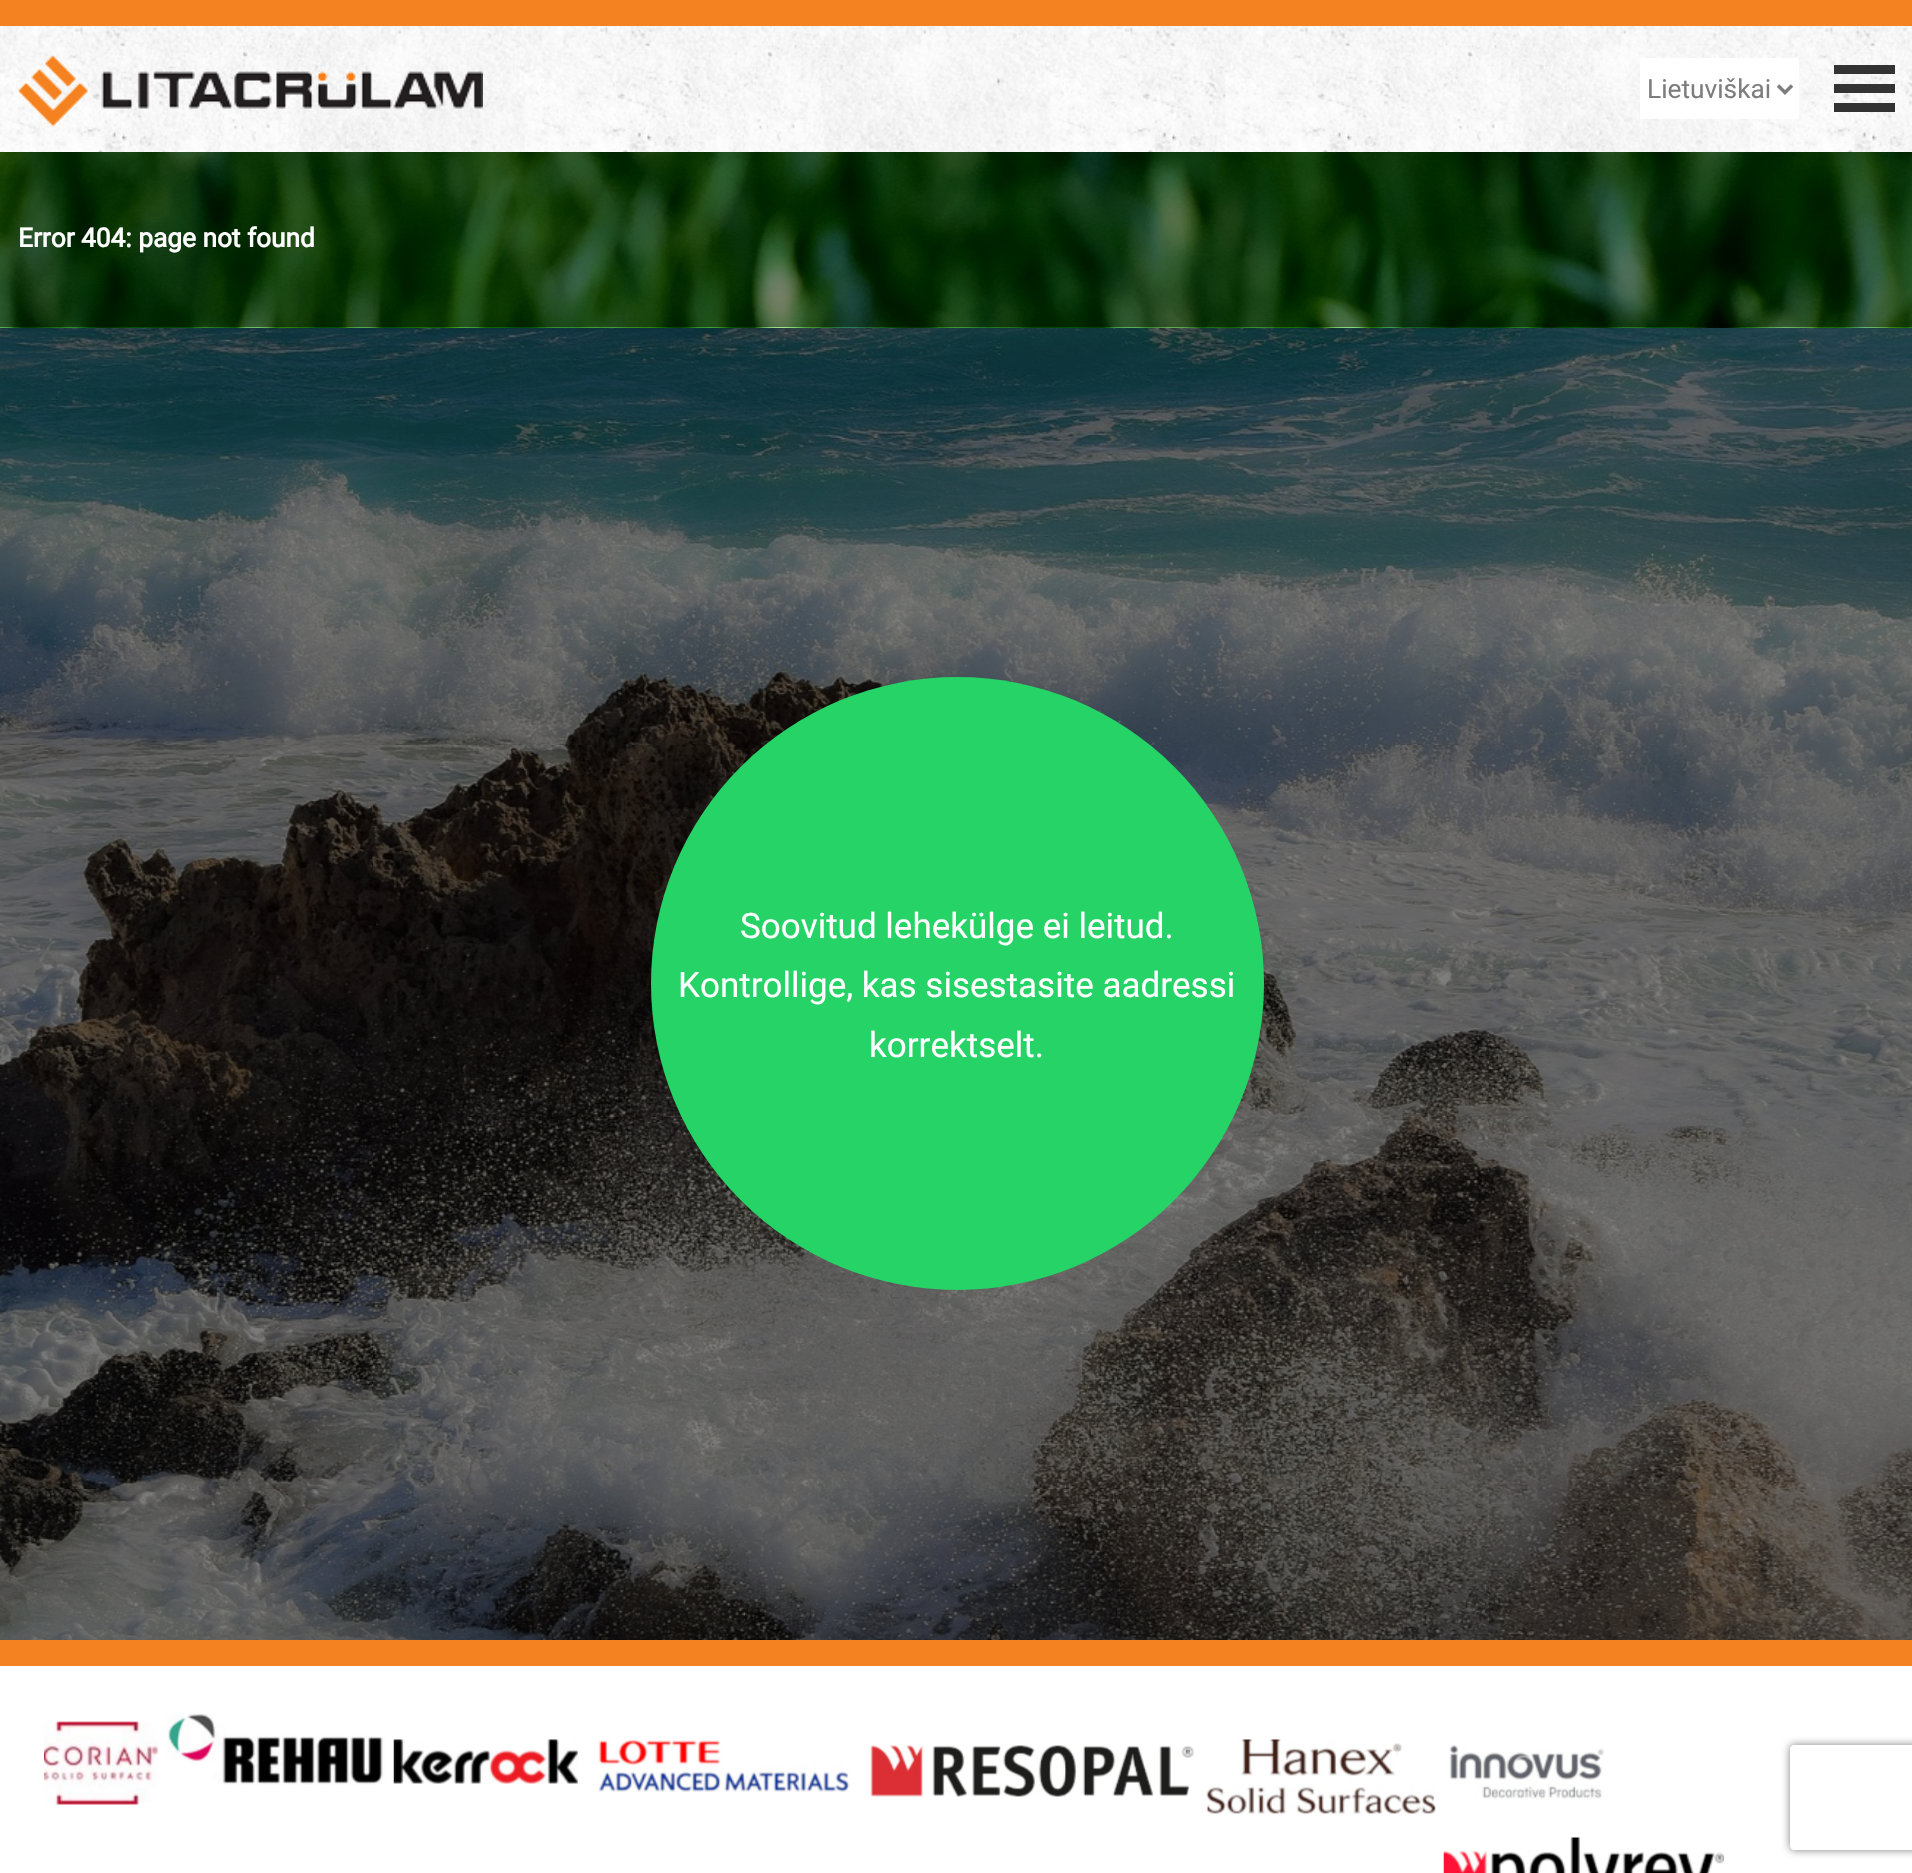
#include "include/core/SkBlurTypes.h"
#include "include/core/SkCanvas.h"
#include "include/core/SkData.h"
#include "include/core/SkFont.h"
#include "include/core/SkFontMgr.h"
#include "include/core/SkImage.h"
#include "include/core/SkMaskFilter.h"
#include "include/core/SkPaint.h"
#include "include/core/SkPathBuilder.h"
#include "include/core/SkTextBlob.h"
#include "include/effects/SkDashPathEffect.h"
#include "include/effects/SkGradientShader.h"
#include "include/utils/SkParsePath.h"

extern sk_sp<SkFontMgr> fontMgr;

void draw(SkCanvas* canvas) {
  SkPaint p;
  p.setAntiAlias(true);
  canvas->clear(SK_ColorWHITE);
  canvas->drawImageRect(SkImages::DeferredFromEncodedData(SkData::MakeFromFileName("images/1.png")), SkRect::MakeLTRB(0, 26, 1912, 152), SkSamplingOptions());
  p.setColor(SkColorSetRGB(245, 130, 33));
  canvas->drawRect(SkRect::MakeLTRB(0, 0, 1912, 26), p);
  canvas->drawImageRect(SkImages::DeferredFromEncodedData(SkData::MakeFromFileName("images/2.png")), SkRect::MakeLTRB(17, 55, 483, 127), SkSamplingOptions());
  p.setColor(SK_ColorWHITE);
  canvas->drawRect(SkRect::MakeLTRB(1640, 58, 1799, 119), p);
  p.setStyle(SkPaint::kStroke_Style);
  p.setStrokeWidth(3.5f);
  p.setColor(SkColorSetRGB(125, 125, 125));
  canvas->drawPath(SkPathBuilder().moveTo(1778, 85.5f).lineTo(1785, 92.5f).lineTo(1792, 85.5f).detach(), p);
  p.setStyle(SkPaint::kFill_Style);
  p.setColor(SkColorSetRGB(51, 51, 51));
  canvas->drawRect(SkRect::MakeLTRB(1834, 65, 1895, 74), p);
  canvas->drawRect(SkRect::MakeLTRB(1834, 84, 1895, 93), p);
  canvas->drawRect(SkRect::MakeLTRB(1834, 103, 1895, 112), p);
  canvas->drawImageRect(SkImages::DeferredFromEncodedData(SkData::MakeFromFileName("images/3.png")), SkRect::MakeLTRB(0, 152, 1912, 328), SkSamplingOptions());
  canvas->drawImageRect(SkImages::DeferredFromEncodedData(SkData::MakeFromFileName("images/4.png")), SkRect::MakeLTRB(0, 328, 1912, 1640), SkSamplingOptions());
  p.setColor(SkColorSetRGB(37, 211, 102));
  canvas->drawCircle(957.5f, 983.5f, 306.5f, p);
  p.setColor(SkColorSetRGB(245, 130, 33));
  canvas->drawRect(SkRect::MakeLTRB(0, 1640, 1912, 1666), p);
  canvas->drawImageRect(SkImages::DeferredFromEncodedData(SkData::MakeFromFileName("images/5.png")), SkRect::MakeLTRB(44, 1721, 158, 1805), SkSamplingOptions());
  canvas->drawImageRect(SkImages::DeferredFromEncodedData(SkData::MakeFromFileName("images/6.png")), SkRect::MakeLTRB(167, 1713, 385, 1785), SkSamplingOptions());
  canvas->drawImageRect(SkImages::DeferredFromEncodedData(SkData::MakeFromFileName("images/7.png")), SkRect::MakeLTRB(393, 1739, 578, 1784), SkSamplingOptions());
  canvas->drawImageRect(SkImages::DeferredFromEncodedData(SkData::MakeFromFileName("images/8.png")), SkRect::MakeLTRB(598, 1740, 850, 1792), SkSamplingOptions());
  canvas->drawImageRect(SkImages::DeferredFromEncodedData(SkData::MakeFromFileName("images/9.png")), SkRect::MakeLTRB(870, 1745, 1194, 1797), SkSamplingOptions());
  canvas->drawImageRect(SkImages::DeferredFromEncodedData(SkData::MakeFromFileName("images/10.png")), SkRect::MakeLTRB(1206, 1739, 1436, 1814), SkSamplingOptions());
  canvas->drawImageRect(SkImages::DeferredFromEncodedData(SkData::MakeFromFileName("images/11.png")), SkRect::MakeLTRB(1449, 1745, 1604, 1799), SkSamplingOptions());
  canvas->drawImageRect(SkImages::DeferredFromEncodedData(SkData::MakeFromFileName("images/12.png")), SkRect::MakeLTRB(1443, 1837, 1724, 1873), SkSamplingOptions());
  canvas->save();
  canvas->clipPath(SkPathBuilder(SkPathFillType::kEvenOdd).moveTo(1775, 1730).lineTo(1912, 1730).lineTo(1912, 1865).lineTo(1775, 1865).close().moveTo(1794, 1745).lineTo(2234, 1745).cubicTo(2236, 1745, 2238, 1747, 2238, 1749).lineTo(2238, 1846).cubicTo(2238, 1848, 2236, 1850, 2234, 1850).lineTo(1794, 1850).cubicTo(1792, 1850, 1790, 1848, 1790, 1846).lineTo(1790, 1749).cubicTo(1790, 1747, 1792, 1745, 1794, 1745).close().detach(), true);
  p.setColor(SkColorSetRGB(128, 128, 128));
  p.setMaskFilter(SkMaskFilter::MakeBlur(kNormal_SkBlurStyle, 4.5f));
  canvas->drawRoundRect(SkRect::MakeLTRB(1790, 1745, 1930, 1850), 4, 4, p);
  p.setMaskFilter(nullptr);
  canvas->restore();
  SkFont font1(fontMgr->matchFamilyStyle("Roboto", SkFontStyle::Normal()), 26.25f);
  font1.setSubpixel(true);
  p.setColor(SkColorSetRGB(125, 125, 125));
  canvas->drawString("Lietuviškai", 1647, 98, font1, p);
  SkFont font2(fontMgr->matchFamilyStyle("Roboto", SkFontStyle::Bold()), 26.25f);
  font2.setSubpixel(true);
  p.setColor(SK_ColorWHITE);
  canvas->drawString("Error 404: page not found", 18, 247, font2, p);
  SkFont font3(fontMgr->matchFamilyStyle("Roboto", SkFontStyle::Normal()), 35);
  font3.setSubpixel(true);
  canvas->drawString("Soovitud lehekülge ei leitud.", 740, 938, font3, p);
  canvas->drawString("Kontrollige, kas sisestasite aadressi", 678, 997, font3, p);
  canvas->drawString("korrektselt.", 869, 1057, font3, p);
}
